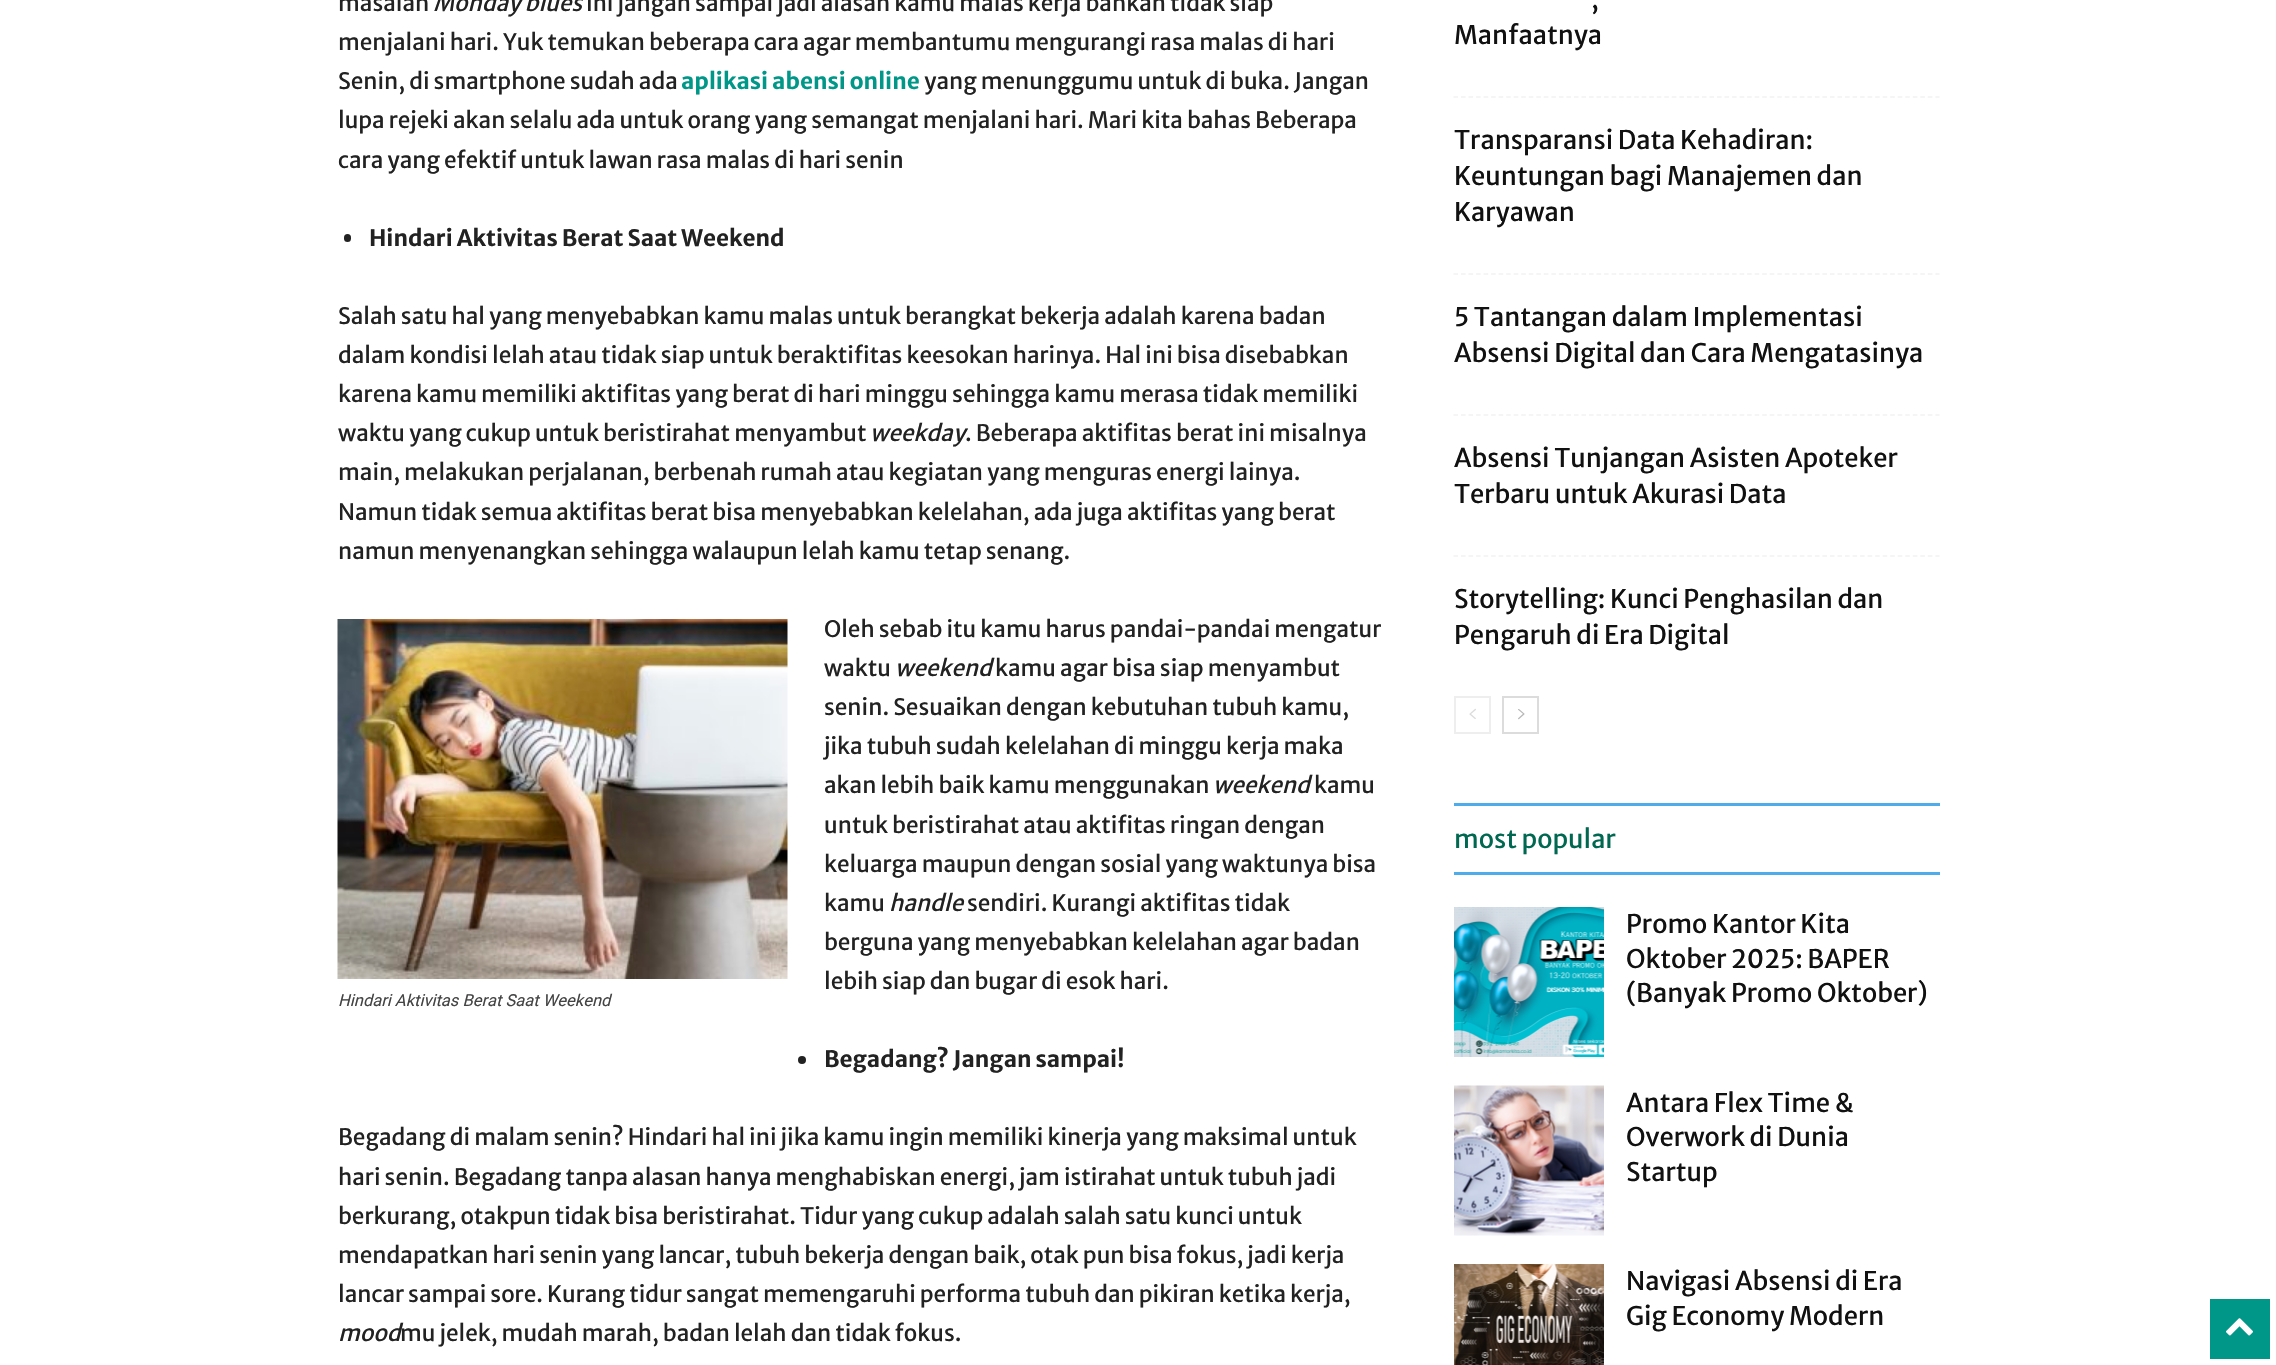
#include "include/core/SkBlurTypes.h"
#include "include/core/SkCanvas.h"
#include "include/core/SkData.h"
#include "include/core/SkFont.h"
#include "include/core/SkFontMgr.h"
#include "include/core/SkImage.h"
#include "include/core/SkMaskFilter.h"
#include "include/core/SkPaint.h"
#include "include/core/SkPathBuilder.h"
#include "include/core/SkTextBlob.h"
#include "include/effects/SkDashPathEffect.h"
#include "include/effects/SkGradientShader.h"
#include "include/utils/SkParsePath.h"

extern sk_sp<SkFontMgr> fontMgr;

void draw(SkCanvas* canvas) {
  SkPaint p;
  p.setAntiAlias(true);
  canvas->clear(SK_ColorWHITE);
  p.setColor(SkColorSetRGB(34, 34, 34));
  canvas->drawRoundRect(SkRect::MakeLTRB(344, 234, 351, 242), 3.5f, 3.5f, p);
  canvas->drawImageRect(SkImages::DeferredFromEncodedData(SkData::MakeFromFileName("images/1.png")), SkRect::MakeLTRB(337, 619, 788, 979), SkSamplingOptions());
  canvas->drawCircle(802, 1060, 4, p);
  p.setStyle(SkPaint::kStroke_Style);
  p.setStrokeWidth(1.5f);
  p.setColor(SkColorSetRGB(242, 242, 242));
  p.setPathEffect(SkDashPathEffect::Make({{4.5f, 3.03f}}, 0));
  canvas->drawPath(SkPathBuilder().moveTo(1453.5f, 97).lineTo(1939.5f, 97).detach(), p);
  p.setPathEffect(nullptr);
  p.setPathEffect(SkDashPathEffect::Make({{4.5f, 3.03f}}, 0));
  canvas->drawPath(SkPathBuilder().moveTo(1453.5f, 274).lineTo(1939.5f, 274).detach(), p);
  p.setPathEffect(nullptr);
  p.setPathEffect(SkDashPathEffect::Make({{4.5f, 3.03f}}, 0));
  canvas->drawPath(SkPathBuilder().moveTo(1453.5f, 415).lineTo(1939.5f, 415).detach(), p);
  p.setPathEffect(nullptr);
  p.setPathEffect(SkDashPathEffect::Make({{4.5f, 3.03f}}, 0));
  canvas->drawPath(SkPathBuilder().moveTo(1453.5f, 556).lineTo(1939.5f, 556).detach(), p);
  p.setPathEffect(nullptr);
  p.setStrokeWidth(2);
  p.setColor(SkColorSetRGB(238, 238, 238));
  canvas->drawRect(SkRect::MakeLTRB(1455, 697, 1490, 733), p);
  canvas->drawImageRect(SkImages::DeferredFromEncodedData(SkData::MakeFromFileName("images/2.png")), SkRect::MakeLTRB(1469, 708, 1476, 719), SkSamplingOptions());
  p.setColor(SkColorSetRGB(220, 220, 220));
  canvas->drawRect(SkRect::MakeLTRB(1503, 697, 1538, 733), p);
  canvas->drawImageRect(SkImages::DeferredFromEncodedData(SkData::MakeFromFileName("images/3.png")), SkRect::MakeLTRB(1518, 709, 1525, 720), SkSamplingOptions());
  p.setStyle(SkPaint::kFill_Style);
  p.setColor(SkColorSetRGB(79, 172, 234));
  canvas->drawRect(SkRect::MakeLTRB(1454, 803, 1940, 806), p);
  canvas->drawRect(SkRect::MakeLTRB(1454, 872, 1940, 875), p);
  canvas->drawImageRect(SkImages::DeferredFromEncodedData(SkData::MakeFromFileName("images/4.png")), SkRect::MakeLTRB(1454, 907, 1604, 1057), SkSamplingOptions());
  canvas->drawImageRect(SkImages::DeferredFromEncodedData(SkData::MakeFromFileName("images/5.png")), SkRect::MakeLTRB(1454, 1085, 1604, 1236), SkSamplingOptions());
  canvas->drawImageRect(SkImages::DeferredFromEncodedData(SkData::MakeFromFileName("images/6.png")), SkRect::MakeLTRB(1454, 1264, 1604, 1365), SkSamplingOptions());
  p.setColor(SkColorSetRGB(0, 151, 136));
  canvas->drawRect(SkRect::MakeLTRB(2210, 1299, 2270, 1359), p);
  canvas->drawImageRect(SkImages::DeferredFromEncodedData(SkData::MakeFromFileName("images/7.png")), SkRect::MakeLTRB(2226, 1318, 2253, 1336), SkSamplingOptions());
  SkFont font1(fontMgr->matchFamilyStyle("Merriweather Sans", SkFontStyle::Normal()), 22.5f);
  font1.setSubpixel(true);
  p.setColor(SkColorSetRGB(34, 34, 34));
  canvas->drawString("masalah", 338, 11, font1, p);
  SkFont font2(fontMgr->matchFamilyStyle("Merriweather Sans", SkFontStyle::Italic()), 22.5f);
  font2.setSubpixel(true);
  canvas->drawString("Monday blues", 433, 11, font2, p);
  canvas->drawString("ini jangan sampai jadi alasan kamu malas kerja bahkan tidak siap", 586, 11, font1, p);
  canvas->drawString("menjalani hari. Yuk temukan beberapa cara agar membantumu mengurangi rasa malas di hari", 338, 50, font1, p);
  canvas->drawString("Senin, di smartphone sudah ada", 338, 89, font1, p);
  SkFont font3(fontMgr->matchFamilyStyle("Merriweather Sans", SkFontStyle::Bold()), 22.5f);
  font3.setSubpixel(true);
  p.setColor(SkColorSetRGB(0, 151, 136));
  canvas->drawString("aplikasi abensi online", 681, 89, font3, p);
  p.setColor(SkColorSetRGB(34, 34, 34));
  canvas->drawString("yang menunggumu untuk di buka. Jangan", 924, 89, font1, p);
  canvas->drawString("lupa rejeki akan selalu ada untuk orang yang semangat menjalani hari. Mari kita bahas Beberapa", 338, 128, font1, p);
  canvas->drawString("cara yang efektif untuk lawan rasa malas di hari senin", 338, 168, font1, p);
  canvas->drawString("Hindari Aktivitas Berat Saat Weekend", 369, 246, font3, p);
  canvas->drawString("Salah satu hal yang menyebabkan kamu malas untuk berangkat bekerja adalah karena badan", 338, 324, font1, p);
  canvas->drawString("dalam kondisi lelah atau tidak siap untuk beraktifitas keesokan harinya. Hal ini bisa disebabkan", 338, 363, font1, p);
  canvas->drawString("karena kamu memiliki aktifitas yang berat di hari minggu sehingga kamu merasa tidak memiliki", 338, 402, font1, p);
  canvas->drawString("waktu yang cukup untuk beristirahat menyambut", 338, 441, font1, p);
  canvas->drawString("weekday", 870, 441, font2, p);
  canvas->drawString(". Beberapa aktifitas berat ini misalnya", 965, 441, font1, p);
  canvas->drawString("main, melakukan perjalanan, berbenah rumah atau kegiatan yang menguras energi lainya.", 338, 480, font1, p);
  canvas->drawString("Namun tidak semua aktifitas berat bisa menyebabkan kelelahan, ada juga aktifitas yang berat", 338, 520, font1, p);
  canvas->drawString("namun menyenangkan sehingga walaupun lelah kamu tetap senang.", 338, 559, font1, p);
  canvas->drawString("Oleh sebab itu kamu harus pandai-pandai mengatur", 824, 637, font1, p);
  canvas->drawString("waktu", 824, 676, font1, p);
  canvas->drawString("weekend", 895, 676, font2, p);
  canvas->drawString("kamu agar bisa siap menyambut", 995, 676, font1, p);
  canvas->drawString("senin. Sesuaikan dengan kebutuhan tubuh kamu,", 824, 715, font1, p);
  canvas->drawString("jika tubuh sudah kelelahan di minggu kerja maka", 824, 754, font1, p);
  canvas->drawString("akan lebih baik kamu menggunakan", 824, 793, font1, p);
  canvas->drawString("weekend", 1213, 793, font2, p);
  canvas->drawString("kamu", 1314, 793, font1, p);
  canvas->drawString("untuk beristirahat atau aktifitas ringan dengan", 824, 833, font1, p);
  canvas->drawString("keluarga maupun dengan sosial yang waktunya bisa", 824, 872, font1, p);
  canvas->drawString("kamu", 824, 911, font1, p);
  canvas->drawString("handle", 889, 911, font2, p);
  canvas->drawString("sendiri. Kurangi aktifitas tidak", 967, 911, font1, p);
  canvas->drawString("berguna yang menyebabkan kelelahan agar badan", 824, 950, font1, p);
  canvas->drawString("lebih siap dan bugar di esok hari.", 824, 989, font1, p);
  SkFont font4(fontMgr->matchFamilyStyle("Roboto", SkFontStyle::Italic()), 16.5f);
  font4.setSubpixel(true);
  p.setColor(SkColorSetRGB(68, 68, 68));
  canvas->drawString("Hindari Aktivitas Berat Saat Weekend", 338, 1006, font4, p);
  p.setColor(SkColorSetRGB(34, 34, 34));
  canvas->drawString("Begadang? Jangan sampai!", 824, 1067, font3, p);
  canvas->drawString("Begadang di malam senin? Hindari hal ini jika kamu ingin memiliki kinerja yang maksimal untuk", 338, 1145, font1, p);
  canvas->drawString("hari senin. Begadang tanpa alasan hanya menghabiskan energi, jam istirahat untuk tubuh jadi", 338, 1185, font1, p);
  canvas->drawString("berkurang, otakpun tidak bisa beristirahat. Tidur yang cukup adalah salah satu kunci untuk", 338, 1224, font1, p);
  canvas->drawString("mendapatkan hari senin yang lancar, tubuh bekerja dengan baik, otak pun bisa fokus, jadi kerja", 338, 1263, font1, p);
  canvas->drawString("lancar sampai sore. Kurang tidur sangat memengaruhi performa tubuh dan pikiran ketika kerja,", 338, 1302, font1, p);
  canvas->drawString("mood", 338, 1341, font2, p);
  canvas->drawString("mu jelek, mudah marah, badan lelah dan tidak fokus.", 400, 1341, font1, p);
  SkFont font5(fontMgr->matchFamilyStyle("Merriweather Sans", SkFontStyle::Normal()), 25.5f);
  font5.setSubpixel(true);
  p.setColor(SkColorSetRGB(17, 17, 17));
  canvas->drawString(",", 1591, 8, font5, p);
  canvas->drawString("Manfaatnya", 1454, 44, font5, p);
  canvas->drawString("Transparansi Data Kehadiran:", 1454, 149, font5, p);
  canvas->drawString("Keuntungan bagi Manajemen dan", 1454, 185, font5, p);
  canvas->drawString("Karyawan", 1454, 221, font5, p);
  canvas->drawString("5 Tantangan dalam Implementasi", 1454, 326, font5, p);
  canvas->drawString("Absensi Digital dan Cara Mengatasinya", 1454, 362, font5, p);
  canvas->drawString("Absensi Tunjangan Asisten Apoteker", 1454, 467, font5, p);
  canvas->drawString("Terbaru untuk Akurasi Data", 1454, 503, font5, p);
  canvas->drawString("Storytelling: Kunci Penghasilan dan", 1454, 608, font5, p);
  canvas->drawString("Pengaruh di Era Digital", 1454, 644, font5, p);
  p.setColor(SkColorSetRGB(0, 104, 80));
  canvas->drawString("most popular", 1454, 848, font5, p);
  p.setColor(SkColorSetRGB(17, 17, 17));
  canvas->drawString("Promo Kantor Kita", 1626, 933, font5, p);
  canvas->drawString("Oktober 2025: BAPER", 1626, 968, font5, p);
  canvas->drawString("(Banyak Promo Oktober)", 1626, 1002, font5, p);
  canvas->drawString("Antara Flex Time &", 1626, 1112, font5, p);
  canvas->drawString("Overwork di Dunia", 1626, 1146, font5, p);
  canvas->drawString("Startup", 1626, 1181, font5, p);
  canvas->drawString("Navigasi Absensi di Era", 1626, 1290, font5, p);
  canvas->drawString("Gig Economy Modern", 1626, 1325, font5, p);
}
